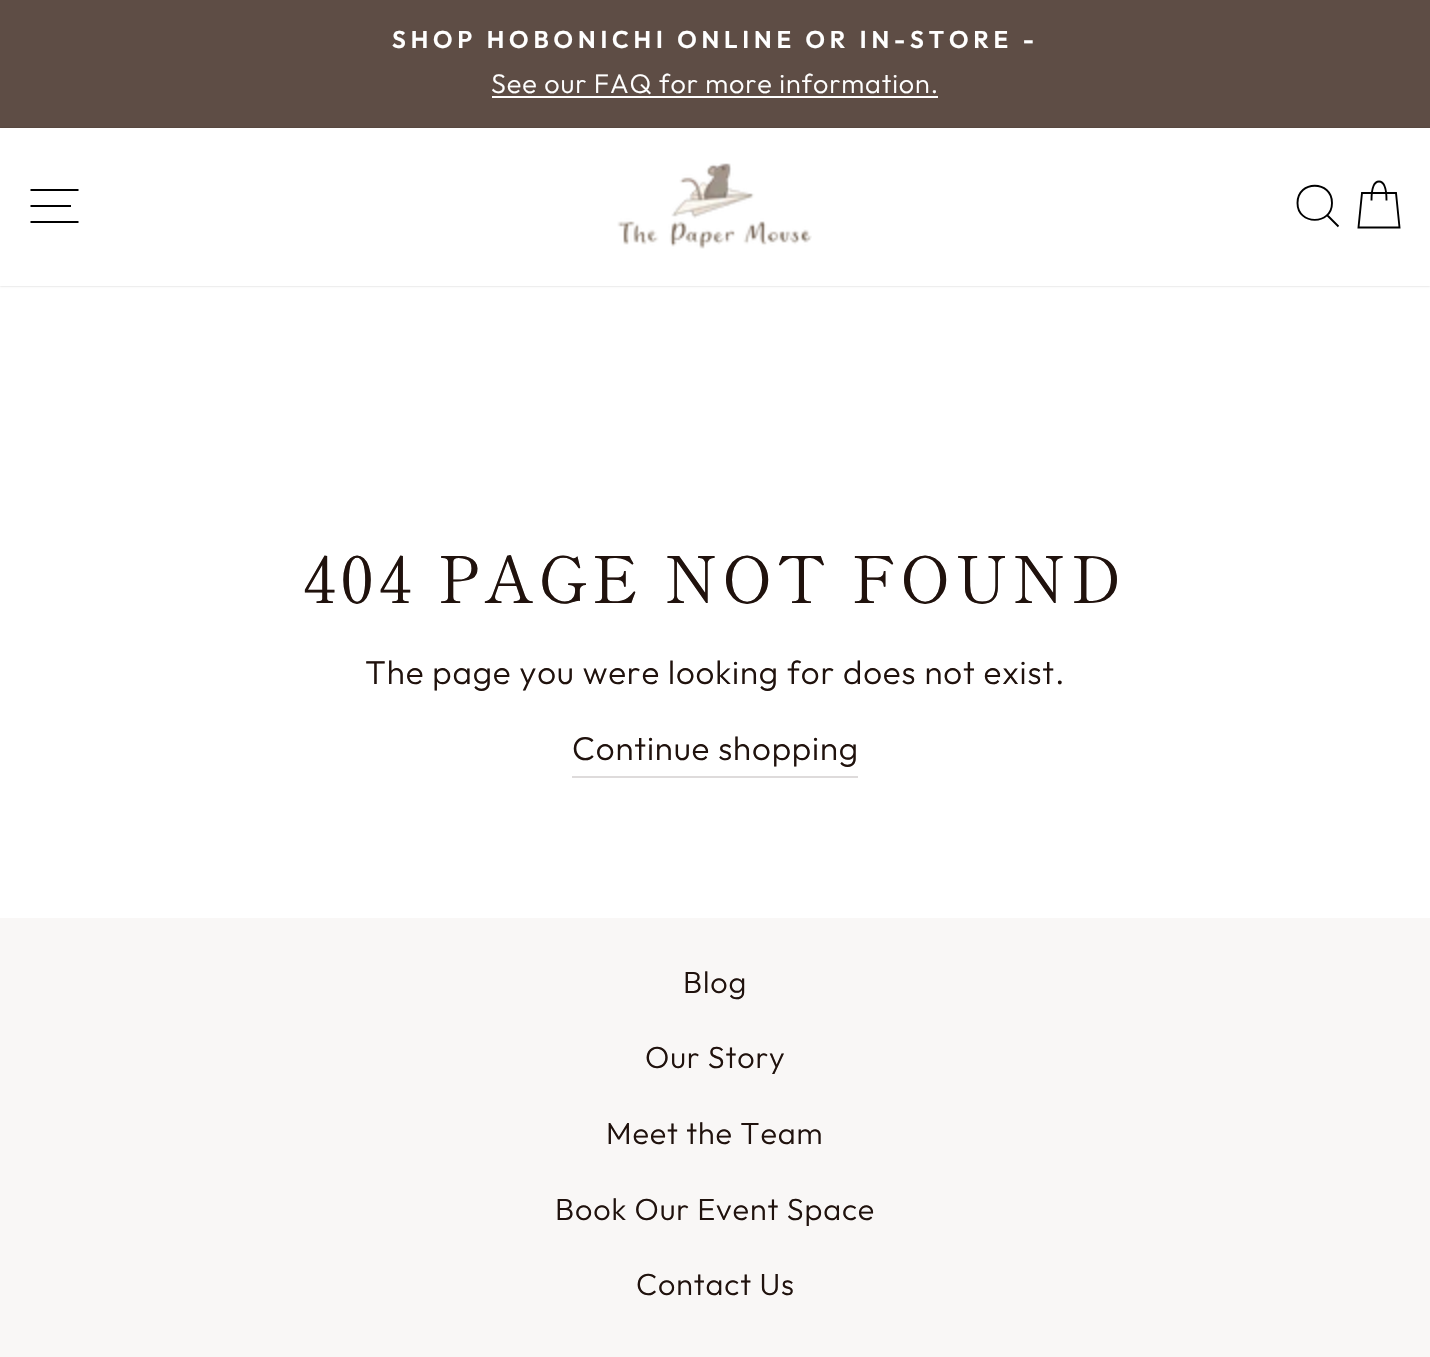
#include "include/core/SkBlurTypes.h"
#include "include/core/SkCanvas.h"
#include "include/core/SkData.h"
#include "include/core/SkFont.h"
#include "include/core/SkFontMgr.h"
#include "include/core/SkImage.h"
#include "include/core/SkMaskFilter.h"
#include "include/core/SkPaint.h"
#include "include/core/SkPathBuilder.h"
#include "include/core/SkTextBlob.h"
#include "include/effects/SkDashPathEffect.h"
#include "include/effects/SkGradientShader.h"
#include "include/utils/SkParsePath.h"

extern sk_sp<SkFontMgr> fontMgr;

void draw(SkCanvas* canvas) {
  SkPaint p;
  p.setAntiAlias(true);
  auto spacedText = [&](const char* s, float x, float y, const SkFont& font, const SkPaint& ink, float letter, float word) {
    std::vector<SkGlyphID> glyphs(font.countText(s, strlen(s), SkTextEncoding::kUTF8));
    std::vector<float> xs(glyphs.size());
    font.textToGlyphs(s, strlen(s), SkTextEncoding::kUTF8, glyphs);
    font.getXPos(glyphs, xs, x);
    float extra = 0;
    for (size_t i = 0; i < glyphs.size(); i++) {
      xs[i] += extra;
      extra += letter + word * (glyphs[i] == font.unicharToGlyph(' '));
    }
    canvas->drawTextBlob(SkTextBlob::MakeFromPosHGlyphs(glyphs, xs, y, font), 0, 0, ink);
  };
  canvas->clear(SK_ColorWHITE);
  p.setColor(SkColorSetRGB(94, 77, 69));
  canvas->drawRect(SkRect::MakeLTRB(0, 0, 1430, 128), p);
  p.setColor(SK_ColorWHITE);
  canvas->drawRect(SkRect::MakeLTRB(492, 96, 938, 98), p);
  canvas->save();
  canvas->clipPath(SkPathBuilder(SkPathFillType::kEvenOdd).moveTo(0, 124).lineTo(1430, 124).lineTo(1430, 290).lineTo(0, 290).close().moveTo(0, 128).lineTo(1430, 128).lineTo(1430, 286).lineTo(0, 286).close().detach(), true);
  p.setColor(SkColorSetARGB(51, 0, 0, 0));
  p.setMaskFilter(SkMaskFilter::MakeBlur(kNormal_SkBlurStyle, 1));
  canvas->drawRect(SkRect::MakeLTRB(0, 128, 1430, 286), p);
  p.setMaskFilter(nullptr);
  canvas->restore();
  p.setStyle(SkPaint::kStroke_Style);
  p.setStrokeWidth(1.9f);
  p.setColor(SK_ColorBLACK);
  canvas->drawPath(SkPathBuilder().moveTo(30.5f, 190).lineTo(78.5f, 190).moveTo(30.5f, 206).lineTo(71, 206).moveTo(30.5f, 222).lineTo(78.5f, 222).detach(), p);
  canvas->drawImageRect(SkImages::DeferredFromEncodedData(SkData::MakeFromFileName("images/1.png")), SkRect::MakeLTRB(617, 163, 812, 249), SkSamplingOptions());
  canvas->drawPath(SkPathBuilder().moveTo(1332, 203).cubicTo(1332, 225.5f, 1297.5f, 225.5f, 1297.5f, 203).cubicTo(1297.5f, 180, 1332, 180, 1332, 203).close().moveTo(1338.5f, 226.5f).lineTo(1327.5f, 215.5f).detach(), p);
  canvas->drawPath(SkPathBuilder().moveTo(1371.5f, 200.5f).cubicTo(1371.5f, 185.5f, 1375, 181.5f, 1379, 181.5f).cubicTo(1383, 181.5f, 1386.5f, 185.5f, 1386.5f, 200.5f).moveTo(1362, 193).lineTo(1396, 193).lineTo(1399.5f, 227.5f).lineTo(1358.5f, 227.5f).close().detach(), p);
  p.setStyle(SkPaint::kFill_Style);
  p.setColor(SkColorSetRGB(222, 219, 219));
  canvas->drawRect(SkRect::MakeLTRB(572, 776, 858, 778), p);
  p.setColor(SkColorSetRGB(249, 247, 246));
  canvas->drawRect(SkRect::MakeLTRB(0, 918, 1430, 1357), p);
  SkFont font1(fontMgr->matchFamilyStyle("Outfit", SkFontStyle(600, SkFontStyle::kNormal_Width, SkFontStyle::kUpright_Slant)), 24.3f);
  font1.setSubpixel(true);
  p.setColor(SK_ColorWHITE);
  spacedText("SHOP HOBONICHI ONLINE OR IN-STORE -", 392, 48, font1, p, 4.85f, 0);
  SkFont font2(fontMgr->matchFamilyStyle("Outfit", SkFontStyle(300, SkFontStyle::kNormal_Width, SkFontStyle::kUpright_Slant)), 27);
  font2.setSubpixel(true);
  spacedText("See our FAQ for more information.", 491, 93, font2, p, 0.85f, 0);
  SkFont font3(fontMgr->matchFamilyStyle("Shippori Mincho", SkFontStyle::Normal()), 64.6f);
  font3.setSubpixel(true);
  p.setColor(SkColorSetRGB(32, 18, 13));
  spacedText("404 PAGE NOT FOUND", 303, 603, font3, p, 4.8f, 0);
  SkFont font4(fontMgr->matchFamilyStyle("Outfit", SkFontStyle(300, SkFontStyle::kNormal_Width, SkFontStyle::kUpright_Slant)), 33.1f);
  font4.setSubpixel(true);
  spacedText("The page you were looking for does not exist.", 365, 684, font4, p, 0.85f, 0);
  spacedText("Continue shopping", 572, 760, font4, p, 0.85f, 0);
  SkFont font5(fontMgr->matchFamilyStyle("Outfit", SkFontStyle(300, SkFontStyle::kNormal_Width, SkFontStyle::kUpright_Slant)), 30.6f);
  font5.setSubpixel(true);
  spacedText("Blog", 683, 993, font5, p, 0.85f, 0);
  spacedText("Our Story", 645, 1068, font5, p, 0.85f, 0);
  spacedText("Meet the Team", 606, 1144, font5, p, 0.85f, 0);
  spacedText("Book Our Event Space", 555, 1220, font5, p, 0.85f, 0);
  spacedText("Contact Us", 636, 1295, font5, p, 0.85f, 0);
}
